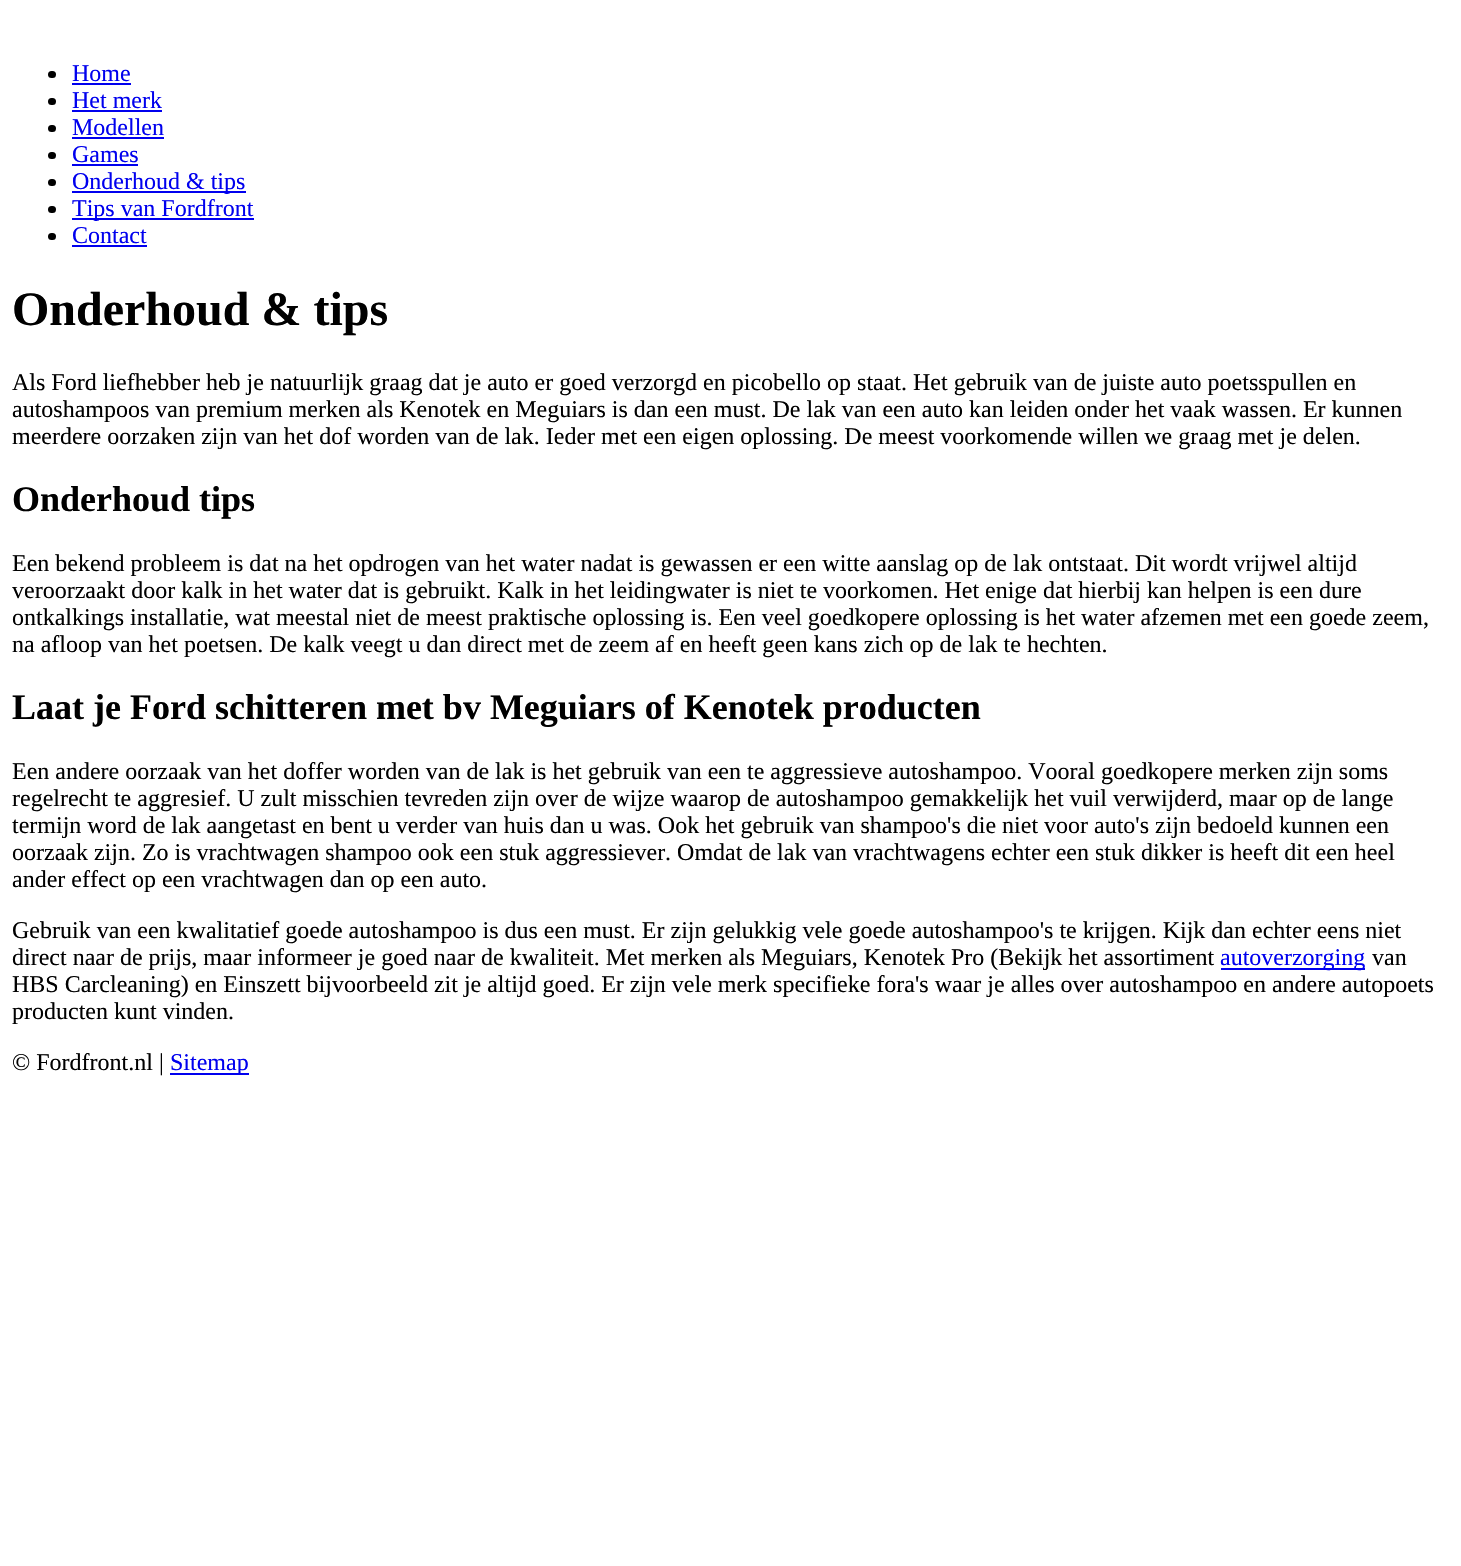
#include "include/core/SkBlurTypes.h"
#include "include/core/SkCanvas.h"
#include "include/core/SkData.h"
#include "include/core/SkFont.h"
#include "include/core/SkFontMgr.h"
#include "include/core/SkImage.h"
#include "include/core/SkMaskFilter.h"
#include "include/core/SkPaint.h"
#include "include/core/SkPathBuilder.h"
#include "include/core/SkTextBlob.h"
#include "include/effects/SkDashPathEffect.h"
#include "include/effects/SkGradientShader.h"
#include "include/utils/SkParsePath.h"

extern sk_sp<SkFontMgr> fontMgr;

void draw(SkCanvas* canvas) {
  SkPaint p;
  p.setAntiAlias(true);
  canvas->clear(SK_ColorWHITE);
  p.setColor(SK_ColorBLACK);
  canvas->drawRoundRect(SkRect::MakeLTRB(48, 71, 56, 78), 3.5f, 3.5f, p);
  p.setColor(SkColorSetRGB(0, 0, 238));
  canvas->drawRect(SkRect::MakeLTRB(72, 83, 131, 85), p);
  p.setColor(SK_ColorBLACK);
  canvas->drawRoundRect(SkRect::MakeLTRB(48, 98, 56, 105), 3.5f, 3.5f, p);
  p.setColor(SkColorSetRGB(0, 0, 238));
  canvas->drawRect(SkRect::MakeLTRB(72, 110, 162, 112), p);
  p.setColor(SK_ColorBLACK);
  canvas->drawRoundRect(SkRect::MakeLTRB(48, 125, 56, 132), 3.5f, 3.5f, p);
  p.setColor(SkColorSetRGB(0, 0, 238));
  canvas->drawRect(SkRect::MakeLTRB(72, 137, 164, 139), p);
  p.setColor(SK_ColorBLACK);
  canvas->drawRoundRect(SkRect::MakeLTRB(48, 152, 56, 159), 3.5f, 3.5f, p);
  p.setColor(SkColorSetRGB(0, 0, 238));
  canvas->drawRect(SkRect::MakeLTRB(72, 164, 138, 166), p);
  p.setColor(SK_ColorBLACK);
  canvas->drawRoundRect(SkRect::MakeLTRB(48, 179, 56, 186), 3.5f, 3.5f, p);
  p.setColor(SkColorSetRGB(0, 0, 238));
  canvas->drawRect(SkRect::MakeLTRB(72, 191, 246, 193), p);
  p.setColor(SK_ColorBLACK);
  canvas->drawRoundRect(SkRect::MakeLTRB(48, 206, 56, 213), 3.5f, 3.5f, p);
  p.setColor(SkColorSetRGB(0, 0, 238));
  canvas->drawRect(SkRect::MakeLTRB(72, 218, 254, 220), p);
  p.setColor(SK_ColorBLACK);
  canvas->drawRoundRect(SkRect::MakeLTRB(48, 233, 56, 240), 3.5f, 3.5f, p);
  p.setColor(SkColorSetRGB(0, 0, 238));
  canvas->drawRect(SkRect::MakeLTRB(72, 245, 147, 247), p);
  canvas->drawRect(SkRect::MakeLTRB(1221, 968, 1365, 970), p);
  canvas->drawRect(SkRect::MakeLTRB(170, 1073, 249, 1075), p);
  SkFont font1(fontMgr->matchFamilyStyle("Liberation Serif", SkFontStyle::Normal()), 24);
  font1.setSubpixel(true);
  canvas->drawString("Home", 72, 81, font1, p);
  canvas->drawString("Het merk", 72, 108, font1, p);
  canvas->drawString("Modellen", 72, 135, font1, p);
  canvas->drawString("Games", 72, 162, font1, p);
  canvas->drawString("Onderhoud & tips", 72, 189, font1, p);
  canvas->drawString("Tips van Fordfront", 72, 216, font1, p);
  canvas->drawString("Contact", 72, 243, font1, p);
  SkFont font2(fontMgr->matchFamilyStyle("Liberation Serif", SkFontStyle::Bold()), 48);
  font2.setSubpixel(true);
  p.setColor(SK_ColorBLACK);
  canvas->drawString("Onderhoud & tips", 12, 325, font2, p);
  canvas->drawString("Als Ford liefhebber heb je natuurlijk graag dat je auto er goed verzorgd en picobello op staat. Het gebruik van de juiste auto poetsspullen en", 12, 390, font1, p);
  canvas->drawString("autoshampoos van premium merken als Kenotek en Meguiars is dan een must. De lak van een auto kan leiden onder het vaak wassen. Er kunnen", 12, 417, font1, p);
  canvas->drawString("meerdere oorzaken zijn van het dof worden van de lak. Ieder met een eigen oplossing. De meest voorkomende willen we graag met je delen.", 12, 444, font1, p);
  SkFont font3(fontMgr->matchFamilyStyle("Liberation Serif", SkFontStyle::Bold()), 36);
  font3.setSubpixel(true);
  canvas->drawString("Onderhoud tips", 12, 511, font3, p);
  canvas->drawString("Een bekend probleem is dat na het opdrogen van het water nadat is gewassen er een witte aanslag op de lak ontstaat. Dit wordt vrijwel altijd", 12, 571, font1, p);
  canvas->drawString("veroorzaakt door kalk in het water dat is gebruikt. Kalk in het leidingwater is niet te voorkomen. Het enige dat hierbij kan helpen is een dure", 12, 598, font1, p);
  canvas->drawString("ontkalkings installatie, wat meestal niet de meest praktische oplossing is. Een veel goedkopere oplossing is het water afzemen met een goede zeem,", 12, 625, font1, p);
  canvas->drawString("na afloop van het poetsen. De kalk veegt u dan direct met de zeem af en heeft geen kans zich op de lak te hechten.", 12, 652, font1, p);
  canvas->drawString("Laat je Ford schitteren met bv Meguiars of Kenotek producten", 12, 719, font3, p);
  canvas->drawString("Een andere oorzaak van het doffer worden van de lak is het gebruik van een te aggressieve autoshampoo. Vooral goedkopere merken zijn soms", 12, 779, font1, p);
  canvas->drawString("regelrecht te aggresief. U zult misschien tevreden zijn over de wijze waarop de autoshampoo gemakkelijk het vuil verwijderd, maar op de lange", 12, 806, font1, p);
  canvas->drawString("termijn word de lak aangetast en bent u verder van huis dan u was. Ook het gebruik van shampoo's die niet voor auto's zijn bedoeld kunnen een", 12, 833, font1, p);
  canvas->drawString("oorzaak zijn. Zo is vrachtwagen shampoo ook een stuk aggressiever. Omdat de lak van vrachtwagens echter een stuk dikker is heeft dit een heel", 12, 860, font1, p);
  canvas->drawString("ander effect op een vrachtwagen dan op een auto.", 12, 887, font1, p);
  canvas->drawString("Gebruik van een kwalitatief goede autoshampoo is dus een must. Er zijn gelukkig vele goede autoshampoo's te krijgen. Kijk dan echter eens niet", 12, 938, font1, p);
  canvas->drawString("direct naar de prijs, maar informeer je goed naar de kwaliteit. Met merken als Meguiars, Kenotek Pro (Bekijk het assortiment", 12, 965, font1, p);
  p.setColor(SkColorSetRGB(0, 0, 238));
  canvas->drawString("autoverzorging", 1220, 965, font1, p);
  p.setColor(SK_ColorBLACK);
  canvas->drawString("van", 1372, 965, font1, p);
  canvas->drawString("HBS Carcleaning) en Einszett bijvoorbeeld zit je altijd goed. Er zijn vele merk specifieke fora's waar je alles over autoshampoo en andere autopoets", 12, 992, font1, p);
  canvas->drawString("producten kunt vinden.", 12, 1019, font1, p);
  canvas->drawString("© Fordfront.nl |", 12, 1070, font1, p);
  p.setColor(SkColorSetRGB(0, 0, 238));
  canvas->drawString("Sitemap", 170, 1070, font1, p);
}
